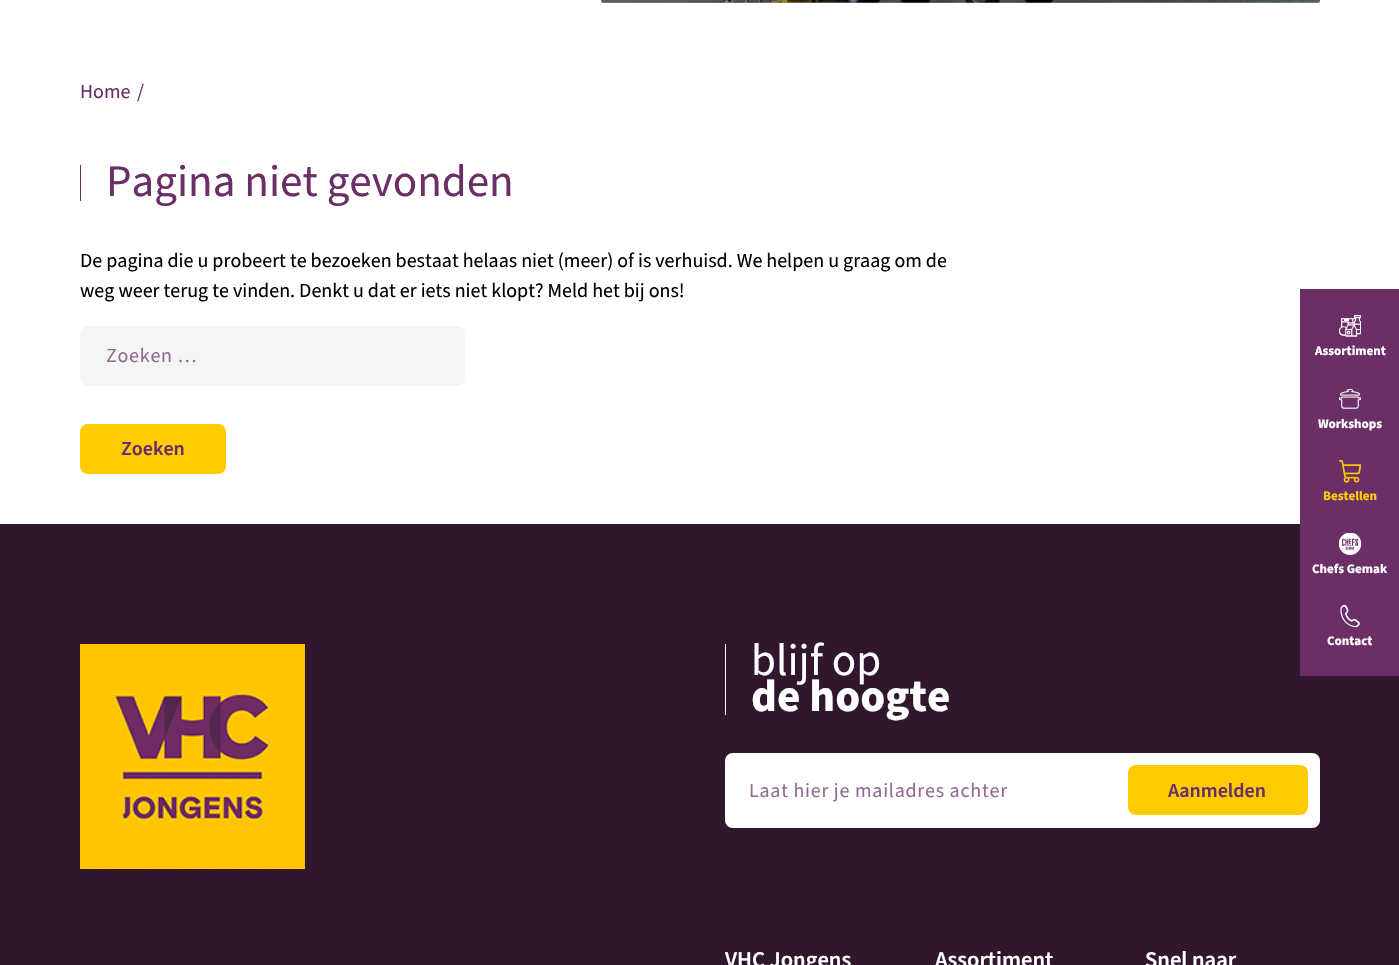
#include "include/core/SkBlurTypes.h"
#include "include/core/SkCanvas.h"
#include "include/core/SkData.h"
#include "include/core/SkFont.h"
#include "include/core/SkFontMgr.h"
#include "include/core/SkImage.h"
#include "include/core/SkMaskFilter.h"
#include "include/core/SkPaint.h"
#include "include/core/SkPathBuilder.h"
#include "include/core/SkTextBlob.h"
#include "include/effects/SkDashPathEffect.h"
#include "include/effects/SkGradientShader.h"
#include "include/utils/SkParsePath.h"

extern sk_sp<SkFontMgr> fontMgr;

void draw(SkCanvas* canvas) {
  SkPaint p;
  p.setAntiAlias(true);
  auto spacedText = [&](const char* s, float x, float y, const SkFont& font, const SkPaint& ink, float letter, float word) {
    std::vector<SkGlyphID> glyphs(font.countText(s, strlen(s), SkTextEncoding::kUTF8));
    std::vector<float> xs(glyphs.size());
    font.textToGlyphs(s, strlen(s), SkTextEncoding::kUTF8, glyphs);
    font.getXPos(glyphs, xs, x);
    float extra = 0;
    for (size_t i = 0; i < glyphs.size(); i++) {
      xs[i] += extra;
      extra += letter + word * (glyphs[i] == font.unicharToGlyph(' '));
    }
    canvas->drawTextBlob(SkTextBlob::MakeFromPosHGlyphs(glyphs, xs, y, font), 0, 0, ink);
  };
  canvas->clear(SK_ColorWHITE);
  canvas->drawImageRect(SkImages::DeferredFromEncodedData(SkData::MakeFromFileName("images/1.png")), SkRect::MakeLTRB(601, 0, 1320, 3), SkSamplingOptions());
  p.setColor(SkColorSetARGB(102, 0, 0, 0));
  canvas->drawRoundRect(SkRect::MakeLTRB(601, -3, 1320, 3), 2.5f, 2.5f, p);
  p.setColor(SkColorSetRGB(107, 46, 103));
  canvas->drawRect(SkRect::MakeLTRB(80, 165, 81, 201), p);
  p.setColor(SkColorSetRGB(245, 245, 245));
  canvas->drawRoundRect(SkRect::MakeLTRB(80, 326, 465, 386), 8, 8, p);
  p.setColor(SkColorSetRGB(253, 203, 0));
  canvas->drawRoundRect(SkRect::MakeLTRB(80, 424, 226, 474), 8, 8, p);
  p.setColor(SkColorSetRGB(48, 23, 46));
  canvas->drawRect(SkRect::MakeLTRB(0, 524, 1399, 965), p);
  p.setColor(SkColorSetRGB(107, 46, 103));
  canvas->drawRect(SkRect::MakeLTRB(1300, 289, 1399, 676), p);
  canvas->drawImageRect(SkImages::DeferredFromEncodedData(SkData::MakeFromFileName("images/2.png")), SkRect::MakeLTRB(1339, 315, 1361, 337), SkSamplingOptions());
  canvas->drawImageRect(SkImages::DeferredFromEncodedData(SkData::MakeFromFileName("images/3.png")), SkRect::MakeLTRB(1339, 389, 1361, 409), SkSamplingOptions());
  canvas->drawImageRect(SkImages::DeferredFromEncodedData(SkData::MakeFromFileName("images/4.png")), SkRect::MakeLTRB(1339, 460, 1361, 483), SkSamplingOptions());
  canvas->drawImageRect(SkImages::DeferredFromEncodedData(SkData::MakeFromFileName("images/5.png")), SkRect::MakeLTRB(1339, 533, 1361, 555), SkSamplingOptions());
  canvas->drawImageRect(SkImages::DeferredFromEncodedData(SkData::MakeFromFileName("images/6.png")), SkRect::MakeLTRB(1340, 605, 1360, 628), SkSamplingOptions());
  canvas->drawImageRect(SkImages::DeferredFromEncodedData(SkData::MakeFromFileName("images/7.png")), SkRect::MakeLTRB(80, 644, 305, 869), SkSamplingOptions());
  p.setColor(SK_ColorWHITE);
  canvas->drawRect(SkRect::MakeLTRB(725, 644, 726, 715), p);
  canvas->drawPath(SkPathBuilder().moveTo(733, 753).lineTo(1115, 753).lineTo(1115, 828).lineTo(733, 828).cubicTo(728.5f, 828, 725, 824.5f, 725, 820).lineTo(725, 761).cubicTo(725, 756.5f, 728.5f, 753, 733, 753).close().detach(), p);
  canvas->drawPath(SkPathBuilder().moveTo(1115, 753).lineTo(1312, 753).cubicTo(1316.5f, 753, 1320, 756.5f, 1320, 761).lineTo(1320, 820).cubicTo(1320, 824.5f, 1316.5f, 828, 1312, 828).lineTo(1115, 828).close().detach(), p);
  p.setColor(SkColorSetRGB(253, 203, 0));
  canvas->drawRoundRect(SkRect::MakeLTRB(1128, 765, 1308, 815), 8, 8, p);
  SkFont font1(fontMgr->matchFamilyStyle("Source Sans Pro", SkFontStyle::Normal()), 20);
  font1.setSubpixel(true);
  p.setColor(SkColorSetRGB(107, 46, 103));
  canvas->drawString("Home", 80, 98, font1, p);
  canvas->drawString("/", 137, 98, font1, p);
  SkFont font2(fontMgr->matchFamilyStyle("Source Sans Pro", SkFontStyle::Normal()), 45);
  font2.setSubpixel(true);
  canvas->drawString("Pagina niet gevonden", 106, 196, font2, p);
  p.setColor(SK_ColorBLACK);
  canvas->drawString("De pagina die u probeert te bezoeken bestaat helaas niet (meer) of is verhuisd. We helpen u graag om de", 80, 267, font1, p);
  canvas->drawString("weg weer terug te vinden. Denkt u dat er iets niet klopt? Meld het bij ons!", 80, 297, font1, p);
  p.setColor(SkColorSetRGB(148, 106, 146));
  spacedText("Zoeken …", 106, 362, font1, p, 0.75f, 0);
  SkFont font3(fontMgr->matchFamilyStyle("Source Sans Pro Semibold", SkFontStyle(600, SkFontStyle::kNormal_Width, SkFontStyle::kUpright_Slant)), 20);
  font3.setSubpixel(true);
  p.setColor(SkColorSetRGB(107, 46, 103));
  canvas->drawString("Zoeken", 121, 455, font3, p);
  SkFont font4(fontMgr->matchFamilyStyle("Source Sans Pro", SkFontStyle::Bold()), 13);
  font4.setSubpixel(true);
  p.setColor(SK_ColorWHITE);
  canvas->drawString("Assortiment", 1315, 355, font4, p);
  canvas->drawString("Workshops", 1318, 428, font4, p);
  p.setColor(SkColorSetRGB(253, 203, 0));
  canvas->drawString("Bestellen", 1323, 500, font4, p);
  p.setColor(SK_ColorWHITE);
  canvas->drawString("Chefs Gemak", 1312, 573, font4, p);
  canvas->drawString("Contact", 1327, 645, font4, p);
  canvas->drawString("blijf op", 751, 675, font2, p);
  SkFont font5(fontMgr->matchFamilyStyle("Source Sans Pro", SkFontStyle::Bold()), 45);
  font5.setSubpixel(true);
  canvas->drawString("de hoogte", 751, 711, font5, p);
  p.setColor(SkColorSetRGB(148, 106, 146));
  spacedText("Laat hier je mailadres achter", 749, 797, font1, p, 0.75f, 0);
  p.setColor(SkColorSetRGB(107, 46, 103));
  canvas->drawString("Aanmelden", 1168, 797, font3, p);
  SkFont font6(fontMgr->matchFamilyStyle("Source Sans Pro Semibold", SkFontStyle(600, SkFontStyle::kNormal_Width, SkFontStyle::kUpright_Slant)), 22.5f);
  font6.setSubpixel(true);
  p.setColor(SK_ColorWHITE);
  canvas->drawString("VHC Jongens", 725, 967, font6, p);
  canvas->drawString("Assortiment", 935, 967, font6, p);
  canvas->drawString("Snel naar", 1145, 967, font6, p);
}
